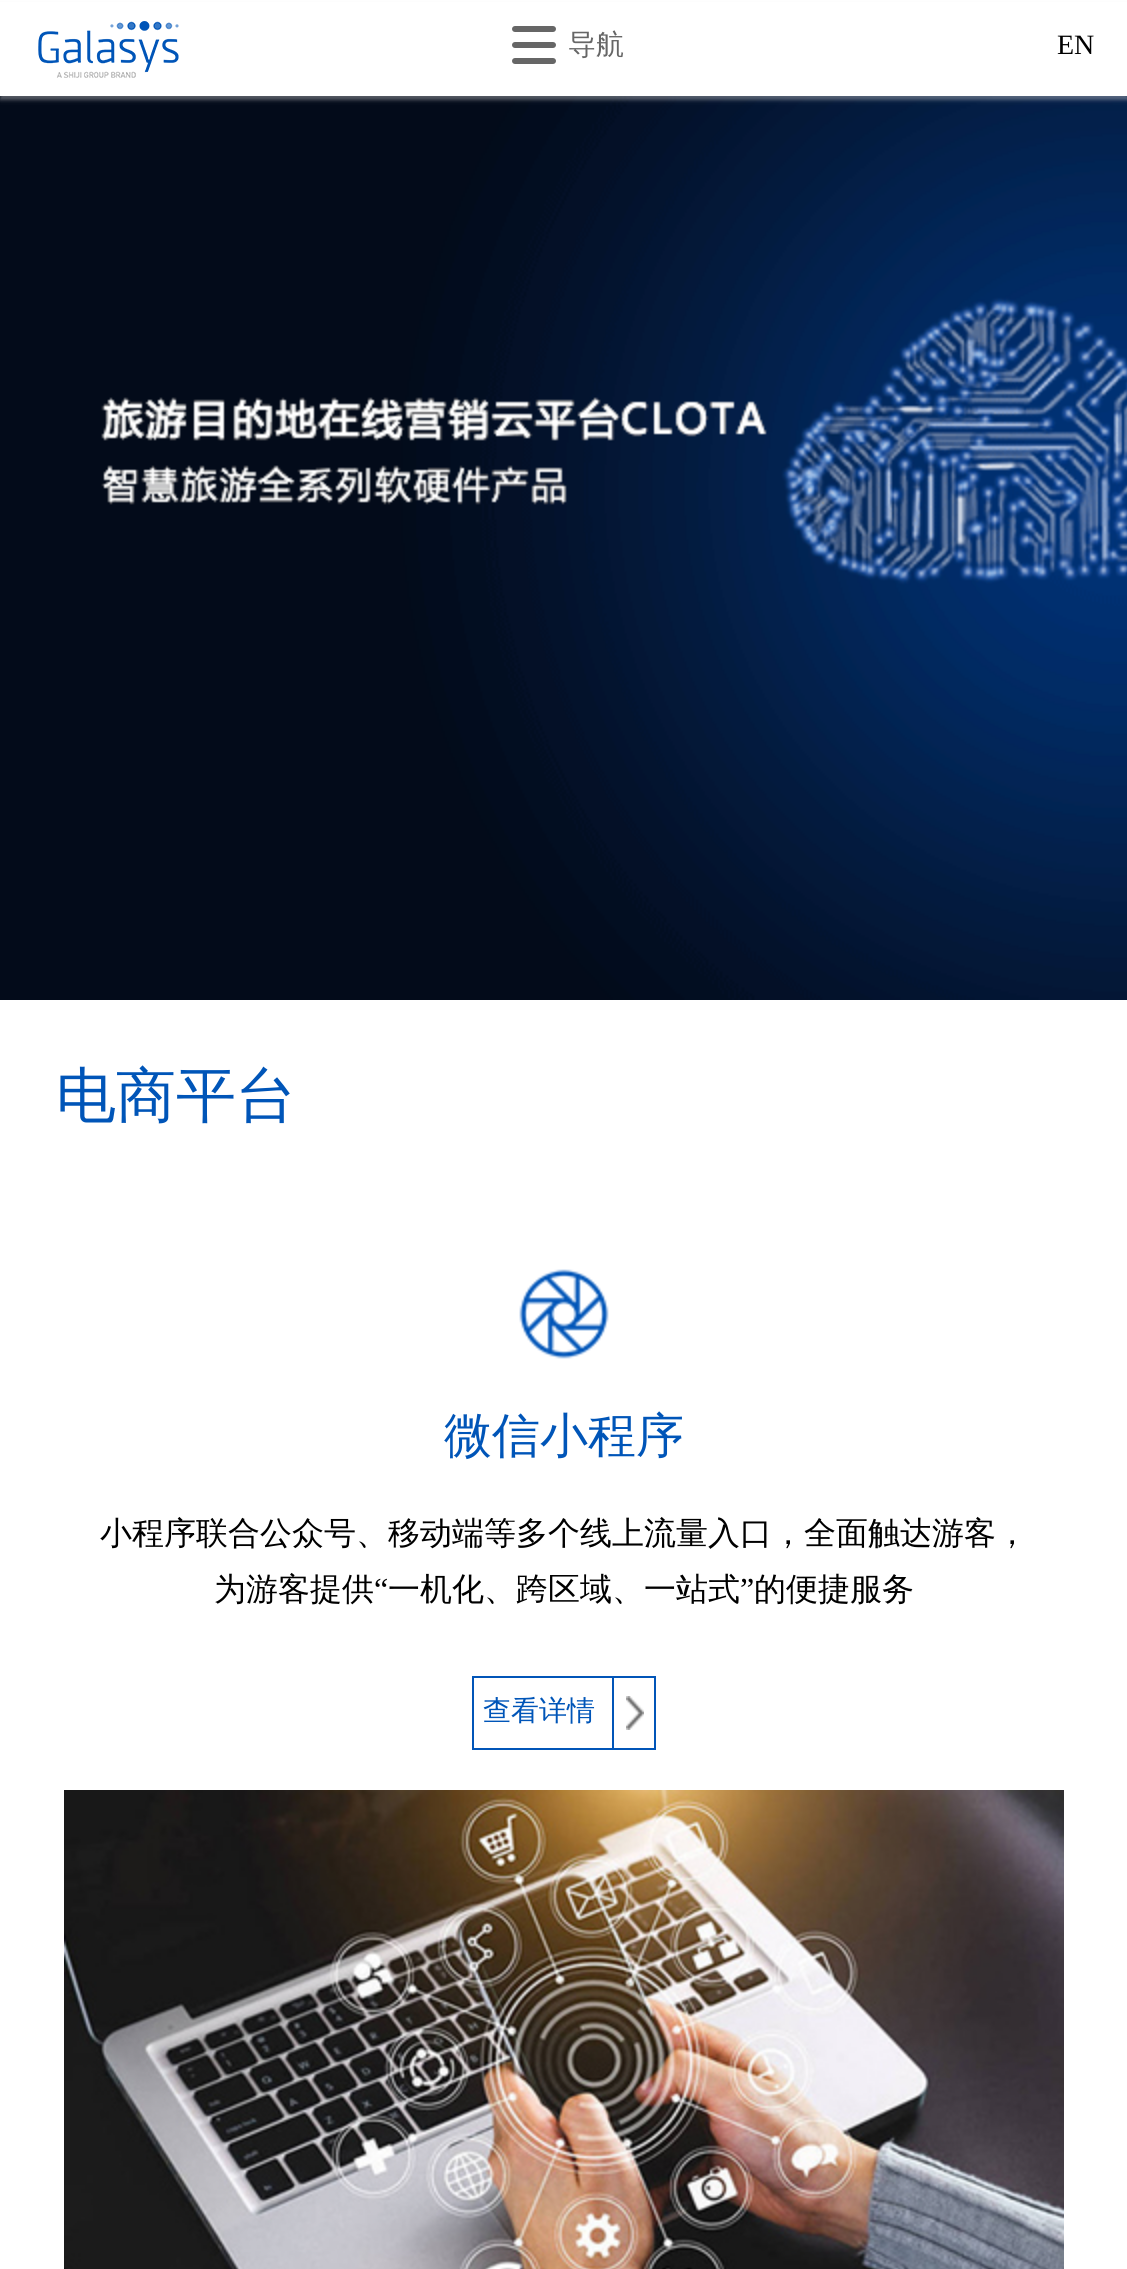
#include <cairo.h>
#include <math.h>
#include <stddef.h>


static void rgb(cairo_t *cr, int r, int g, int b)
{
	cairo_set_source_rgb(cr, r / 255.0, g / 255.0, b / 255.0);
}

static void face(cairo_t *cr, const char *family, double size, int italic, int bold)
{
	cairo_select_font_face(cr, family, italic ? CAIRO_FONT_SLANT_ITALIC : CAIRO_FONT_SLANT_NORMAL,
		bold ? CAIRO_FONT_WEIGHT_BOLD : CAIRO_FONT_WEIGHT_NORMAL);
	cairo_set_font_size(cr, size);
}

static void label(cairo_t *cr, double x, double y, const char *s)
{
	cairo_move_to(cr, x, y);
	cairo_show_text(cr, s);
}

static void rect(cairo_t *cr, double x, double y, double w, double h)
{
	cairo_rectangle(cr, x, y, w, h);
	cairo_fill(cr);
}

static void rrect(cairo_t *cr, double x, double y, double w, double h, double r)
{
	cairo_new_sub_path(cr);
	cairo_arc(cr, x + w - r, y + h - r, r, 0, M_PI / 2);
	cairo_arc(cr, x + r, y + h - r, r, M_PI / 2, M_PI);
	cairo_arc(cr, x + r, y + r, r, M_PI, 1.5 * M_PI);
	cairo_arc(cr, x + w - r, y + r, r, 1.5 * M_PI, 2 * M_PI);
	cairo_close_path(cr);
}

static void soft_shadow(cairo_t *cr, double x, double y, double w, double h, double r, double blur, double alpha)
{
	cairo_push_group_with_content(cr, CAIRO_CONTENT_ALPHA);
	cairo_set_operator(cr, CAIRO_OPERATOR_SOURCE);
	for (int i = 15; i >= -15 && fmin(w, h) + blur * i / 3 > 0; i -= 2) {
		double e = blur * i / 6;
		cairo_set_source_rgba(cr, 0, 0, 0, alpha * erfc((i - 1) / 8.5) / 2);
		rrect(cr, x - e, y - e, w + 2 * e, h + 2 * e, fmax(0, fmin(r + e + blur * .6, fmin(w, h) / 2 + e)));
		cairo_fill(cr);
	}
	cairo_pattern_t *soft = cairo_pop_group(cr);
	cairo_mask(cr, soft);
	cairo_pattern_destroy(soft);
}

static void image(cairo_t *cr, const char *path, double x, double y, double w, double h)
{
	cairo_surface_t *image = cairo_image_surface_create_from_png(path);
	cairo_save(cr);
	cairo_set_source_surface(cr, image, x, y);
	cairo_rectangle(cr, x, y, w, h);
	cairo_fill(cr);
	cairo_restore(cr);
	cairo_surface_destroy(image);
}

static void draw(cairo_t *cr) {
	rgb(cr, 255, 255, 255);
	cairo_paint(cr);
	image(cr, "image1.png", 0, 96, 1127, 904);
	rgb(cr, 209, 209, 209);
	soft_shadow(cr, 0, 4, 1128, 96, 0, 2, 0.4);
	rgb(cr, 255, 255, 255);
	rect(cr, 0, 2, 1127, 94);
	image(cr, "image0.png", 38, 21, 141, 57);
	rgb(cr, 102, 102, 102);
	rrect(cr, 512, 26, 44, 6, 3);
	cairo_fill(cr);
	rrect(cr, 512, 42, 44, 6, 3);
	cairo_fill(cr);
	rrect(cr, 512, 58, 44, 6, 3);
	cairo_fill(cr);
	face(cr, "WenQuanYi Zen Hei Medium", 28, 0, 0);
	label(cr, 568, 54, "导航");
	face(cr, "Liberation Serif", 28, 0, 0);
	rgb(cr, 0, 0, 0);
	label(cr, 1057, 54, "EN");
	face(cr, "WenQuanYi Zen Hei Medium", 60, 0, 0);
	rgb(cr, 0, 85, 184);
	label(cr, 56, 1116, "电商平台");
	image(cr, "image2.png", 519, 1269, 90, 90);
	face(cr, "WenQuanYi Zen Hei Medium", 48, 0, 0);
	label(cr, 444, 1452, "微信小程序");
	face(cr, "WenQuanYi Zen Hei Medium", 32, 0, 0);
	rgb(cr, 0, 0, 0);
	label(cr, 100, 1544, "小程序联合公众号、移动端等多个线上流量入口，全面触达游客，");
	label(cr, 214, 1600, "为游客提供");
	face(cr, "Liberation Serif", 32, 0, 0);
	label(cr, 374, 1600, "“");
	face(cr, "WenQuanYi Zen Hei Medium", 32, 0, 0);
	label(cr, 388, 1600, "一机化、跨区域、一站式");
	face(cr, "Liberation Serif", 32, 0, 0);
	label(cr, 740, 1600, "”");
	face(cr, "WenQuanYi Zen Hei Medium", 32, 0, 0);
	label(cr, 754, 1600, "的便捷服务");
	cairo_rectangle(cr, 473, 1677, 182, 72);
	rgb(cr, 1, 85, 184);
	cairo_stroke(cr);
	face(cr, "WenQuanYi Zen Hei Medium", 28, 0, 0);
	rgb(cr, 0, 85, 184);
	label(cr, 483, 1720, "查看详情");
	image(cr, "image3.png", 626, 1696, 18, 34);
	rgb(cr, 1, 85, 184);
	rect(cr, 612, 1678, 2, 70);
	image(cr, "image4.png", 64, 1790, 1000, 479);
}

int main(void) {
	cairo_surface_t *surface = cairo_image_surface_create(CAIRO_FORMAT_RGB24, 1127, 2269);
	cairo_t *cr = cairo_create(surface);
	cairo_font_options_t *options = cairo_font_options_create();
	cairo_font_options_set_hint_metrics(options, CAIRO_HINT_METRICS_OFF);
	cairo_font_options_set_hint_style(options, CAIRO_HINT_STYLE_NONE);
	cairo_set_font_options(cr, options);
	cairo_set_miter_limit(cr, 4);
	draw(cr);
	cairo_surface_write_to_png(surface, "render.png");
	cairo_font_options_destroy(options);
	cairo_destroy(cr);
	cairo_surface_destroy(surface);
	return 0;
}
